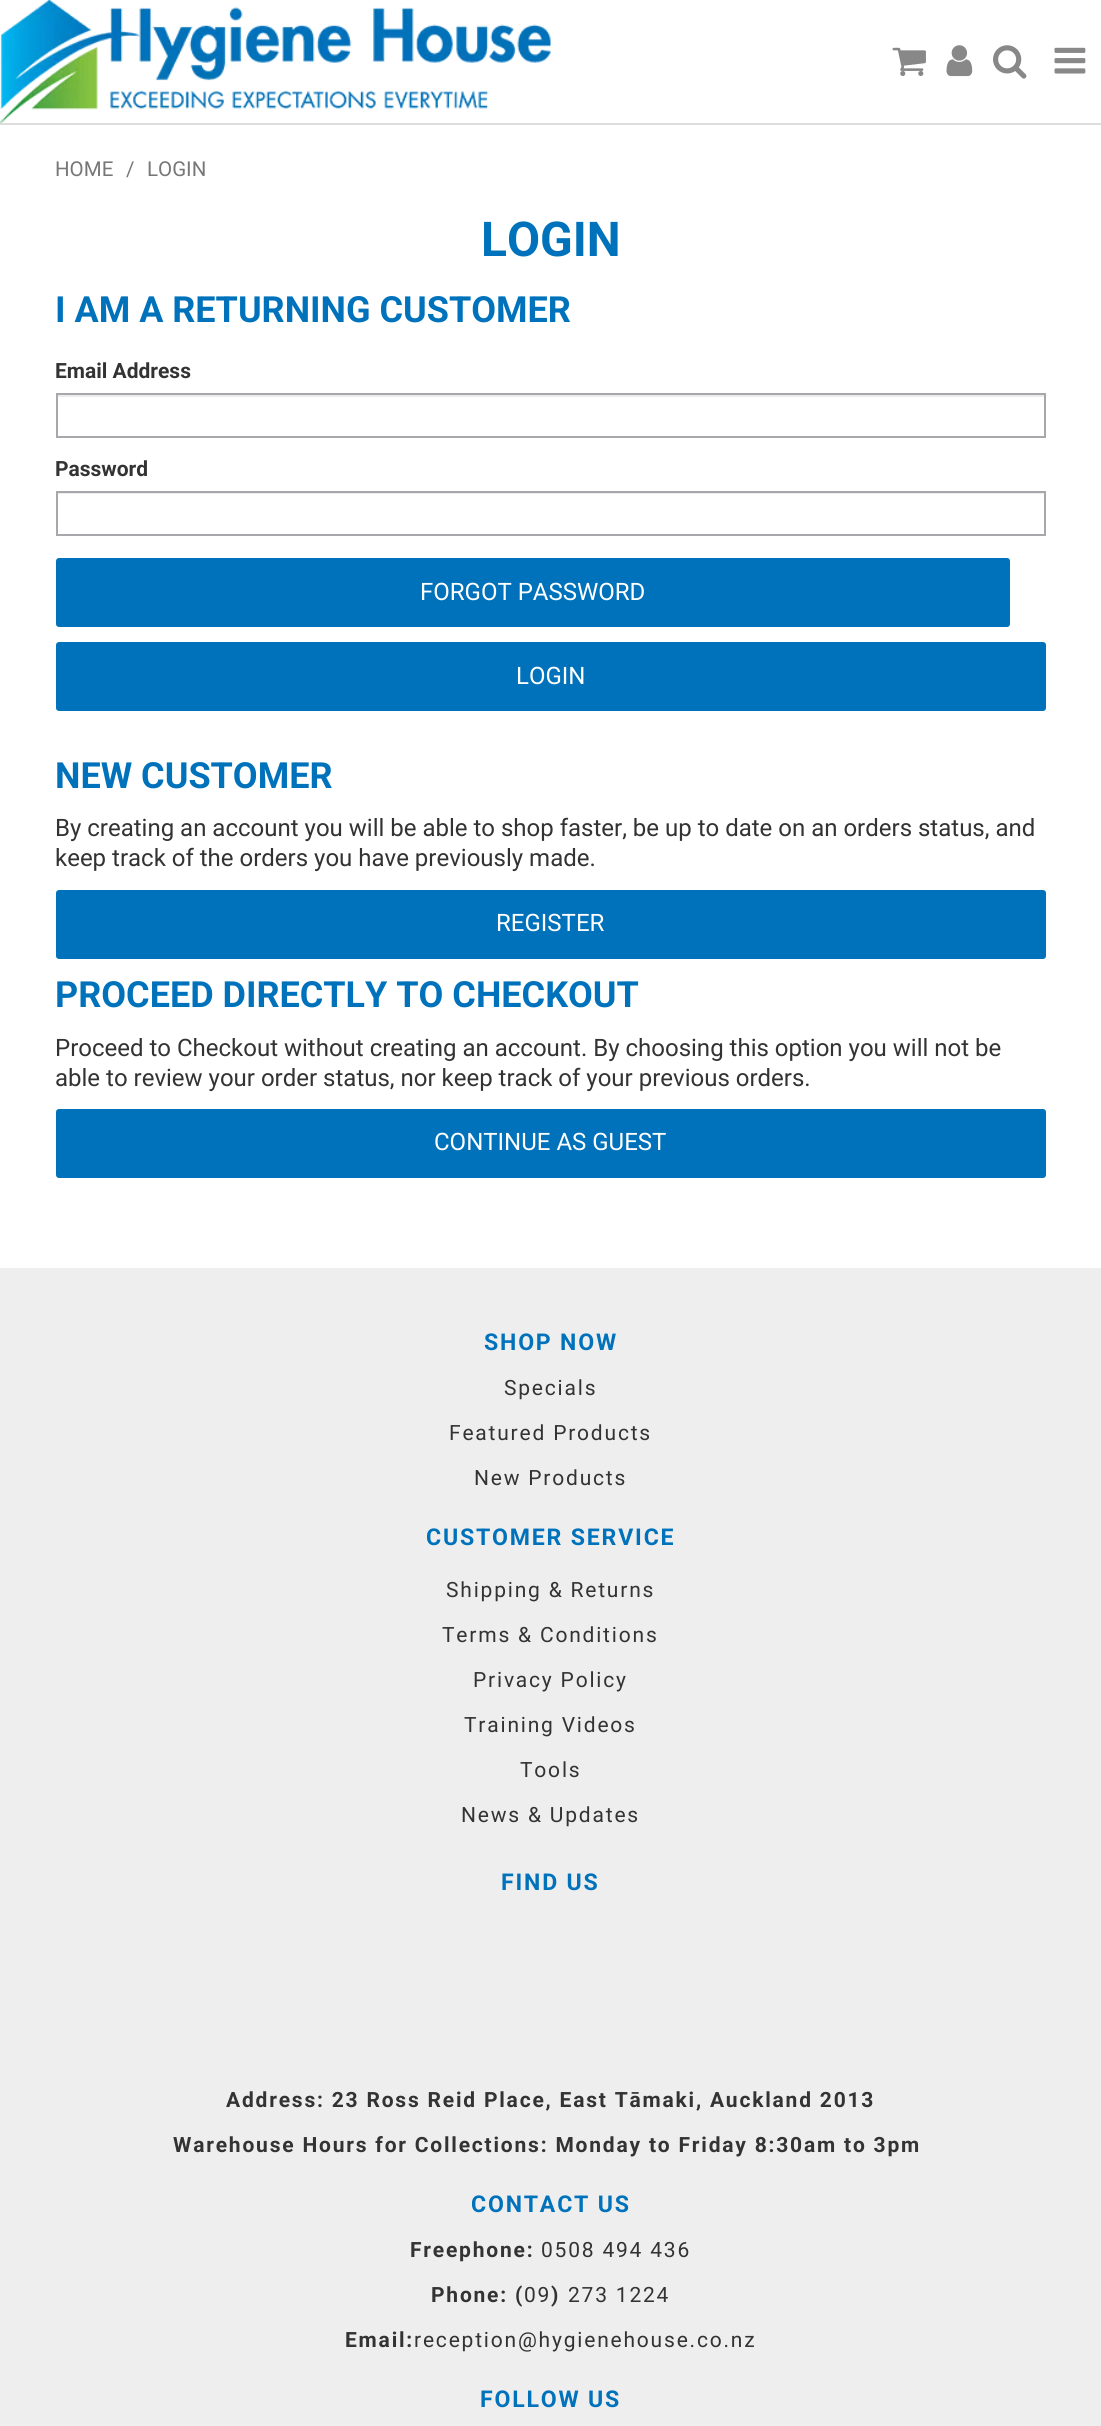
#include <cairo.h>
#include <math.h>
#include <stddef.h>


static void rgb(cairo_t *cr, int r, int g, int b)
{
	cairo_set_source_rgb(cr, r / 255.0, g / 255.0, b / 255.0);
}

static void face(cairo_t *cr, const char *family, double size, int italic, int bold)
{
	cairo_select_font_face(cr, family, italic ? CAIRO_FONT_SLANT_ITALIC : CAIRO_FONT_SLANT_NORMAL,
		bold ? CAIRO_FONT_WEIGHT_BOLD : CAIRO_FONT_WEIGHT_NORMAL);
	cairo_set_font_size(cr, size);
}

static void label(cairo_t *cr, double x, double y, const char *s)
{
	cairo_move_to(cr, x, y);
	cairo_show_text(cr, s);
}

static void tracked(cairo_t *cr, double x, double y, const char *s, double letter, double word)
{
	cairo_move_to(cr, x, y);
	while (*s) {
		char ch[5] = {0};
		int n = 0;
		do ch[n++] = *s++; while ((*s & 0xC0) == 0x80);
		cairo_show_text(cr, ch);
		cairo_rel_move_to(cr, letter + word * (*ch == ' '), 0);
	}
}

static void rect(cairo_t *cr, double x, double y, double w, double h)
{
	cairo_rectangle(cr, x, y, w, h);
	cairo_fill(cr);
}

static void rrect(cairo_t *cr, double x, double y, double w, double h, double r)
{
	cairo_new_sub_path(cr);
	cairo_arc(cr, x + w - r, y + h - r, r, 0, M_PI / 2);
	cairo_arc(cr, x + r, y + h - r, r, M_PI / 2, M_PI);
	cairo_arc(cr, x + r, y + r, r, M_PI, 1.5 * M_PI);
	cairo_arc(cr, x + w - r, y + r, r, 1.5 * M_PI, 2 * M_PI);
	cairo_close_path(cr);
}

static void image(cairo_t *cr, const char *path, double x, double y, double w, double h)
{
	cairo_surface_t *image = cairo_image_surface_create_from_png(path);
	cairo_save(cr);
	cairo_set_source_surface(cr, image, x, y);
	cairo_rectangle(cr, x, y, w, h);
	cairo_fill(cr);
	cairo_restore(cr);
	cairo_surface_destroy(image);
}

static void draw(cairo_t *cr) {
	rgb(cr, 255, 255, 255);
	cairo_paint(cr);
	image(cr, "image0.png", 0, 0, 551, 123);
	image(cr, "image1.png", 892, 47, 34, 29);
	image(cr, "image2.png", 946, 45, 27, 32);
	image(cr, "image3.png", 993, 45, 34, 34);
	image(cr, "image4.png", 1054, 47, 32, 27);
	rgb(cr, 221, 221, 221);
	rect(cr, 0, 123, 1101, 2);
	face(cr, "Roboto", 20.5, 0, 0);
	rgb(cr, 119, 119, 119);
	label(cr, 55, 176, "HOME");
	label(cr, 126, 176, "/");
	label(cr, 147, 176, "LOGIN");
	face(cr, "Roboto", 48, 0, 1);
	rgb(cr, 0, 114, 187);
	label(cr, 481, 256, "LOGIN");
	face(cr, "Roboto", 36, 0, 1);
	label(cr, 55, 322, "I AM A RETURNING CUSTOMER");
	face(cr, "Roboto", 21, 0, 1);
	rgb(cr, 51, 51, 51);
	label(cr, 55, 378, "Email Address");
	rgb(cr, 236, 236, 236);
	rect(cr, 57, 395, 987, 2);
	cairo_rectangle(cr, 57, 394, 988, 43);
	rgb(cr, 166, 168, 171);
	cairo_stroke(cr);
	rgb(cr, 51, 51, 51);
	label(cr, 55, 476, "Password");
	rgb(cr, 236, 236, 236);
	rect(cr, 57, 493, 987, 1);
	cairo_rectangle(cr, 57, 492, 988, 43);
	rgb(cr, 166, 168, 171);
	cairo_stroke(cr);
	rgb(cr, 0, 114, 187);
	rrect(cr, 56, 558, 954, 69, 3);
	cairo_fill(cr);
	face(cr, "Roboto", 24, 0, 0);
	rgb(cr, 255, 255, 255);
	label(cr, 420, 600, "FORGOT PASSWORD");
	rgb(cr, 0, 114, 187);
	rrect(cr, 56, 642, 990, 69, 3);
	cairo_fill(cr);
	rgb(cr, 255, 255, 255);
	label(cr, 516, 684, "LOGIN");
	face(cr, "Roboto", 36, 0, 1);
	rgb(cr, 0, 114, 187);
	label(cr, 55, 788, "NEW CUSTOMER");
	face(cr, "Roboto", 24, 0, 0);
	rgb(cr, 51, 51, 51);
	label(cr, 55, 836, "By creating an account you will be able to shop faster, be up to date on an orders status, and");
	label(cr, 55, 866, "keep track of the orders you have previously made.");
	rgb(cr, 0, 114, 187);
	rrect(cr, 56, 890, 990, 69, 3);
	cairo_fill(cr);
	rgb(cr, 255, 255, 255);
	label(cr, 496, 931, "REGISTER");
	face(cr, "Roboto", 36, 0, 1);
	rgb(cr, 0, 114, 187);
	label(cr, 55, 1007, "PROCEED DIRECTLY TO CHECKOUT");
	face(cr, "Roboto", 24, 0, 0);
	rgb(cr, 51, 51, 51);
	label(cr, 55, 1056, "Proceed to Checkout without creating an account. By choosing this option you will not be");
	label(cr, 55, 1086, "able to review your order status, nor keep track of your previous orders.");
	rgb(cr, 0, 114, 187);
	rrect(cr, 56, 1109, 990, 69, 3);
	cairo_fill(cr);
	rgb(cr, 255, 255, 255);
	label(cr, 434, 1150, "CONTINUE AS GUEST");
	rgb(cr, 238, 238, 238);
	rect(cr, 0, 1268, 1101, 1158);
	face(cr, "Roboto", 23.1, 0, 1);
	rgb(cr, 0, 114, 187);
	tracked(cr, 484, 1350, "SHOP NOW", 1.8, 0);
	face(cr, "Roboto", 21, 0, 0);
	rgb(cr, 51, 51, 51);
	tracked(cr, 504, 1395, "Specials", 1.8, 0);
	tracked(cr, 449, 1440, "Featured Products", 1.8, 0);
	tracked(cr, 474, 1485, "New Products", 1.8, 0);
	face(cr, "Roboto", 23.1, 0, 1);
	rgb(cr, 0, 114, 187);
	tracked(cr, 426, 1545, "CUSTOMER SERVICE", 1.8, 0);
	face(cr, "Roboto", 21, 0, 0);
	rgb(cr, 51, 51, 51);
	tracked(cr, 446, 1597, "Shipping & Returns", 1.8, 0);
	tracked(cr, 442, 1642, "Terms & Conditions", 1.8, 0);
	tracked(cr, 473, 1687, "Privacy Policy", 1.8, 0);
	tracked(cr, 464, 1732, "Training Videos", 1.8, 0);
	tracked(cr, 520, 1777, "Tools", 1.8, 0);
	tracked(cr, 461, 1822, "News & Updates", 1.8, 0);
	face(cr, "Roboto", 23.1, 0, 1);
	rgb(cr, 0, 114, 187);
	tracked(cr, 501, 1890, "FIND US", 1.8, 0);
	face(cr, "Roboto", 21, 0, 1);
	rgb(cr, 51, 51, 51);
	tracked(cr, 226, 2107, "Address: 23 Ross Reid Place, East Tāmaki, Auckland 2013", 1.8, 0);
	tracked(cr, 173, 2152, "Warehouse Hours for Collections: Monday to Friday 8:30am to 3pm", 1.8, 0);
	face(cr, "Roboto", 23.1, 0, 1);
	rgb(cr, 0, 114, 187);
	tracked(cr, 471, 2212, "CONTACT US", 1.8, 0);
	face(cr, "Roboto", 21, 0, 1);
	rgb(cr, 51, 51, 51);
	tracked(cr, 410, 2257, "Freephone:", 1.8, 0);
	face(cr, "Roboto", 21, 0, 0);
	tracked(cr, 541, 2257, "0508 494 436", 1.8, 0);
	face(cr, "Roboto", 21, 0, 1);
	tracked(cr, 431, 2302, "Phone: (", 1.8, 0);
	face(cr, "Roboto", 21, 0, 0);
	tracked(cr, 524, 2302, "09", 1.8, 0);
	face(cr, "Roboto", 21, 0, 1);
	tracked(cr, 551, 2302, ")", 1.8, 0);
	face(cr, "Roboto", 21, 0, 0);
	tracked(cr, 568, 2302, "273 1224", 1.8, 0);
	face(cr, "Roboto", 21, 0, 1);
	tracked(cr, 345, 2347, "Email:", 1.8, 0);
	face(cr, "Roboto", 21, 0, 0);
	tracked(cr, 414, 2347, "reception@hygienehouse.co.nz", 1.8, 0);
	face(cr, "Roboto", 23.1, 0, 1);
	rgb(cr, 0, 114, 187);
	tracked(cr, 480, 2407, "FOLLOW US", 1.8, 0);
}

int main(void) {
	cairo_surface_t *surface = cairo_image_surface_create(CAIRO_FORMAT_RGB24, 1101, 2426);
	cairo_t *cr = cairo_create(surface);
	cairo_font_options_t *options = cairo_font_options_create();
	cairo_font_options_set_hint_metrics(options, CAIRO_HINT_METRICS_OFF);
	cairo_font_options_set_hint_style(options, CAIRO_HINT_STYLE_NONE);
	cairo_set_font_options(cr, options);
	cairo_set_miter_limit(cr, 4);
	draw(cr);
	cairo_surface_write_to_png(surface, "render.png");
	cairo_font_options_destroy(options);
	cairo_destroy(cr);
	cairo_surface_destroy(surface);
	return 0;
}
